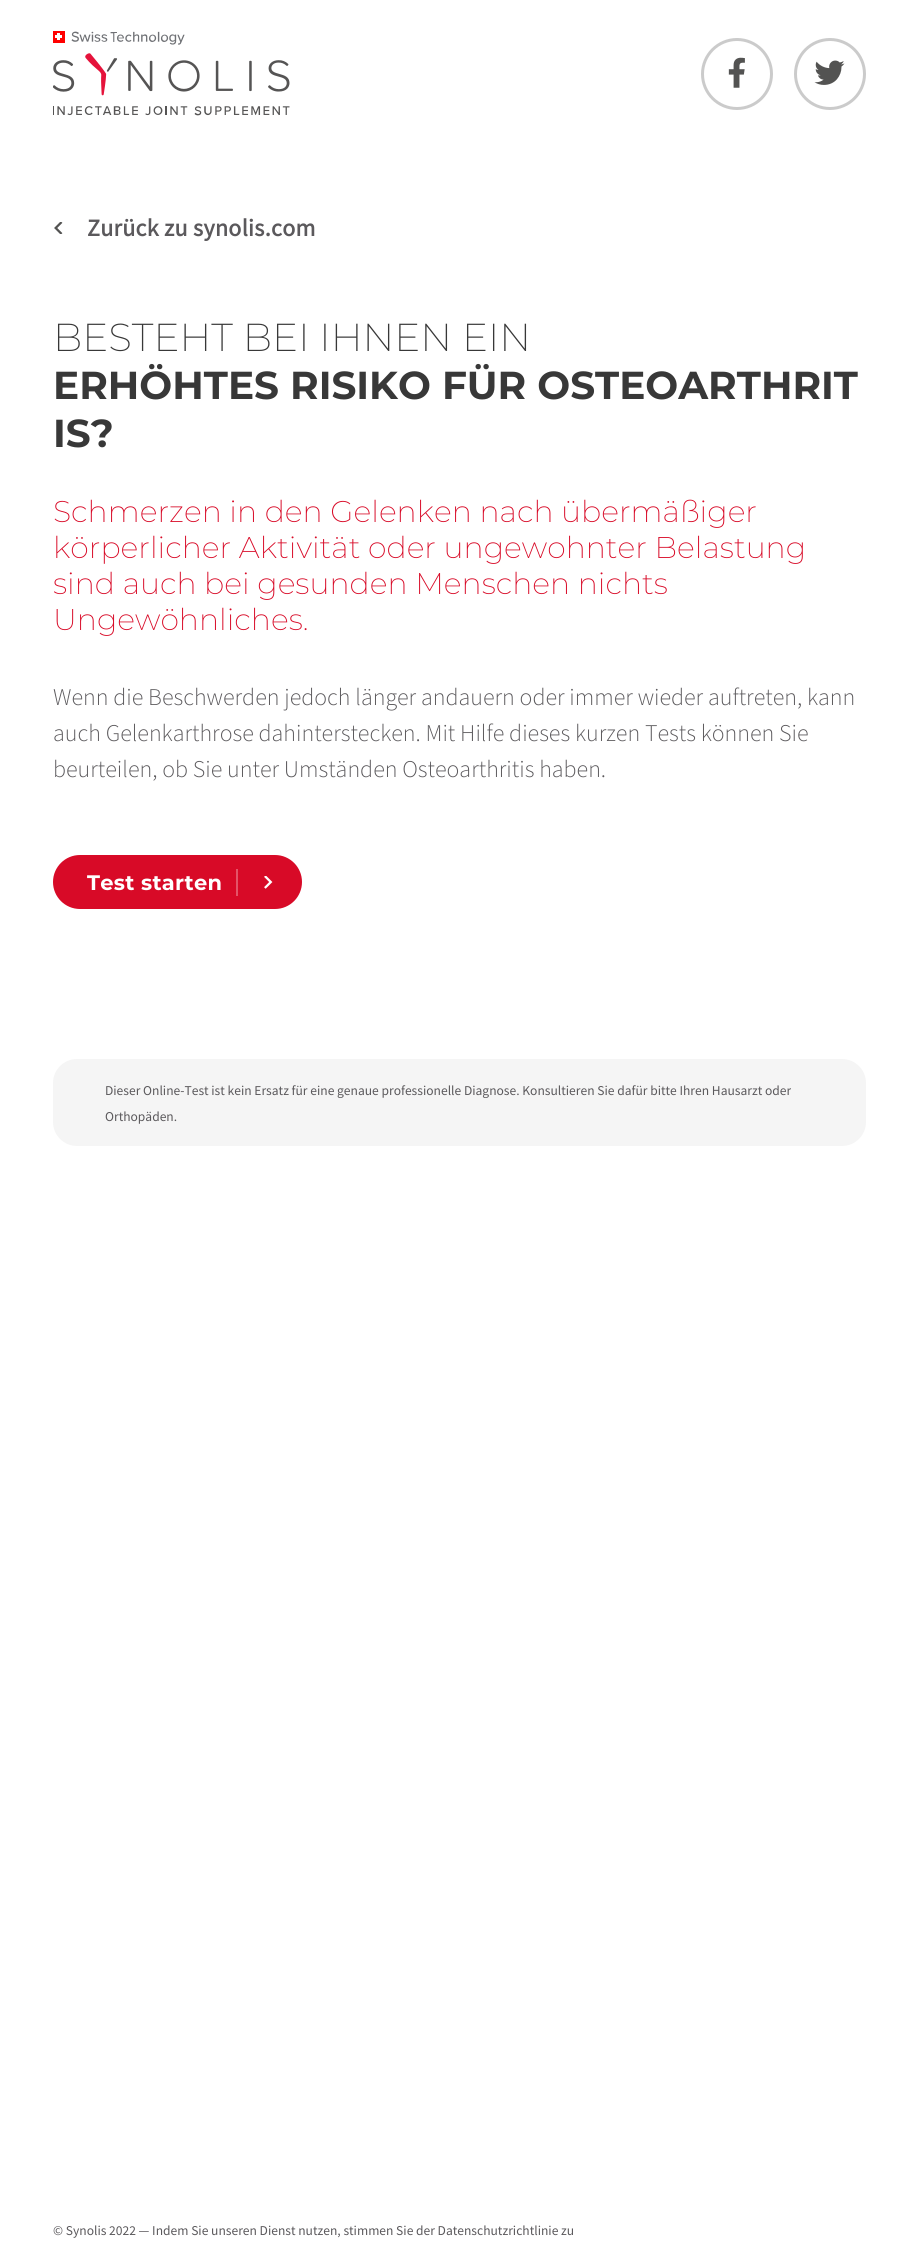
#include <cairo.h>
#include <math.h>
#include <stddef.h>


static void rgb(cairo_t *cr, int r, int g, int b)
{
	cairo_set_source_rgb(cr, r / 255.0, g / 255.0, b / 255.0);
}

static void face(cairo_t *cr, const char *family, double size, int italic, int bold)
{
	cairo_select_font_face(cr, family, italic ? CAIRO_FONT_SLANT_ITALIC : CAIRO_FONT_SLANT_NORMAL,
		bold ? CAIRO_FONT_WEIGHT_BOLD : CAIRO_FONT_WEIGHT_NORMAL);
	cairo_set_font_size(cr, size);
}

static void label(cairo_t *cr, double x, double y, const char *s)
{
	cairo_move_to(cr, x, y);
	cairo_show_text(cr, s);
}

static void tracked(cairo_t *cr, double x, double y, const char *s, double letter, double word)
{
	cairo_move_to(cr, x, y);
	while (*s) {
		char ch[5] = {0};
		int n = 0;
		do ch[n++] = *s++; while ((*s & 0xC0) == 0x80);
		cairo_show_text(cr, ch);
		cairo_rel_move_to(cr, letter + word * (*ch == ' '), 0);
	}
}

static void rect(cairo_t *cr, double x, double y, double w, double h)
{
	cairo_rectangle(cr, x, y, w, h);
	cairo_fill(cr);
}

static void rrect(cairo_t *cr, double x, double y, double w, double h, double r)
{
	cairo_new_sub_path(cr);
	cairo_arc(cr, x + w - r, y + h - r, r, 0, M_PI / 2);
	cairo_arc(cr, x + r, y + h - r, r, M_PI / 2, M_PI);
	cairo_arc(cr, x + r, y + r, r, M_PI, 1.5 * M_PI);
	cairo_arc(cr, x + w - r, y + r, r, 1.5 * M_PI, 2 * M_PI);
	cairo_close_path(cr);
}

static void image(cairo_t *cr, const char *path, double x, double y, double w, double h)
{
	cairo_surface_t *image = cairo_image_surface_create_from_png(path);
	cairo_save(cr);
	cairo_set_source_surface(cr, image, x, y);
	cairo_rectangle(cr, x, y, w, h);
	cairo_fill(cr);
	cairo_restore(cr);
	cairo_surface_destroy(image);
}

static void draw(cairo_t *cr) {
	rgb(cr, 255, 255, 255);
	cairo_paint(cr);
	image(cr, "image0.png", 53, 31, 237, 85);
	cairo_arc(cr, 737, 74, 34.5, 0, 2 * M_PI);
	rgb(cr, 203, 203, 203);
	cairo_set_line_width(cr, 3);
	cairo_stroke(cr);
	image(cr, "image1.png", 728, 57, 17, 31);
	cairo_arc(cr, 830, 74, 34.5, 0, 2 * M_PI);
	cairo_stroke(cr);
	image(cr, "image2.png", 814, 60, 31, 25);
	image(cr, "image3.png", 54, 222, 9, 12);
	face(cr, "Source Sans Pro", 24, 0, 1);
	rgb(cr, 91, 89, 92);
	tracked(cr, 87, 236, "Zurück zu synolis.com", 0.3, 0);
	face(cr, "Montserrat ExtraLight", 39, 0, 0);
	rgb(cr, 56, 56, 56);
	label(cr, 53, 351, "BESTEHT BEI IHNEN EIN");
	face(cr, "Montserrat", 39, 0, 1);
	label(cr, 53, 399, "ERHÖHTES RISIKO FÜR OSTEOARTHRIT");
	label(cr, 53, 447, "IS?");
	face(cr, "Montserrat ExtraLight", 30, 0, 0);
	rgb(cr, 216, 10, 39);
	label(cr, 53, 522, "Schmerzen in den Gelenken nach übermäßiger");
	label(cr, 53, 558, "körperlicher Aktivität oder ungewohnter Belastung");
	label(cr, 53, 594, "sind auch bei gesunden Menschen nichts");
	label(cr, 53, 630, "Ungewöhnliches.");
	face(cr, "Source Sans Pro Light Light", 24, 0, 0);
	rgb(cr, 91, 89, 92);
	label(cr, 53, 705, "Wenn die Beschwerden jedoch länger andauern oder immer wieder auftreten, kann");
	label(cr, 53, 741, "auch Gelenkarthrose dahinterstecken. Mit Hilfe dieses kurzen Tests können Sie");
	label(cr, 53, 777, "beurteilen, ob Sie unter Umständen Osteoarthritis haben.");
	rgb(cr, 216, 10, 39);
	rrect(cr, 53, 855, 249, 54, 27);
	cairo_fill(cr);
	face(cr, "Montserrat", 21, 0, 1);
	rgb(cr, 255, 255, 255);
	tracked(cr, 87, 890, "Test starten", 0.3, 0);
	rgb(cr, 228, 84, 104);
	rect(cr, 236, 869, 2, 27);
	image(cr, "image4.png", 264, 876, 9, 13);
	rgb(cr, 245, 245, 245);
	rrect(cr, 53, 1059, 813, 87, 24);
	cairo_fill(cr);
	face(cr, "Source Sans Pro", 13.5, 0, 0);
	rgb(cr, 91, 89, 92);
	label(cr, 105, 1095, "Dieser Online-Test ist kein Ersatz für eine genaue professionelle Diagnose. Konsultieren Sie dafür bitte Ihren Hausarzt oder");
	label(cr, 105, 1121, "Orthopäden.");
	label(cr, 53, 2235, "© Synolis 2022 — Indem Sie unseren Dienst nutzen, stimmen Sie der Datenschutzrichtlinie zu");
}

int main(void) {
	cairo_surface_t *surface = cairo_image_surface_create(CAIRO_FORMAT_RGB24, 917, 2254);
	cairo_t *cr = cairo_create(surface);
	cairo_font_options_t *options = cairo_font_options_create();
	cairo_font_options_set_hint_metrics(options, CAIRO_HINT_METRICS_OFF);
	cairo_font_options_set_hint_style(options, CAIRO_HINT_STYLE_NONE);
	cairo_set_font_options(cr, options);
	cairo_set_miter_limit(cr, 4);
	draw(cr);
	cairo_surface_write_to_png(surface, "render.png");
	cairo_font_options_destroy(options);
	cairo_destroy(cr);
	cairo_surface_destroy(surface);
	return 0;
}
